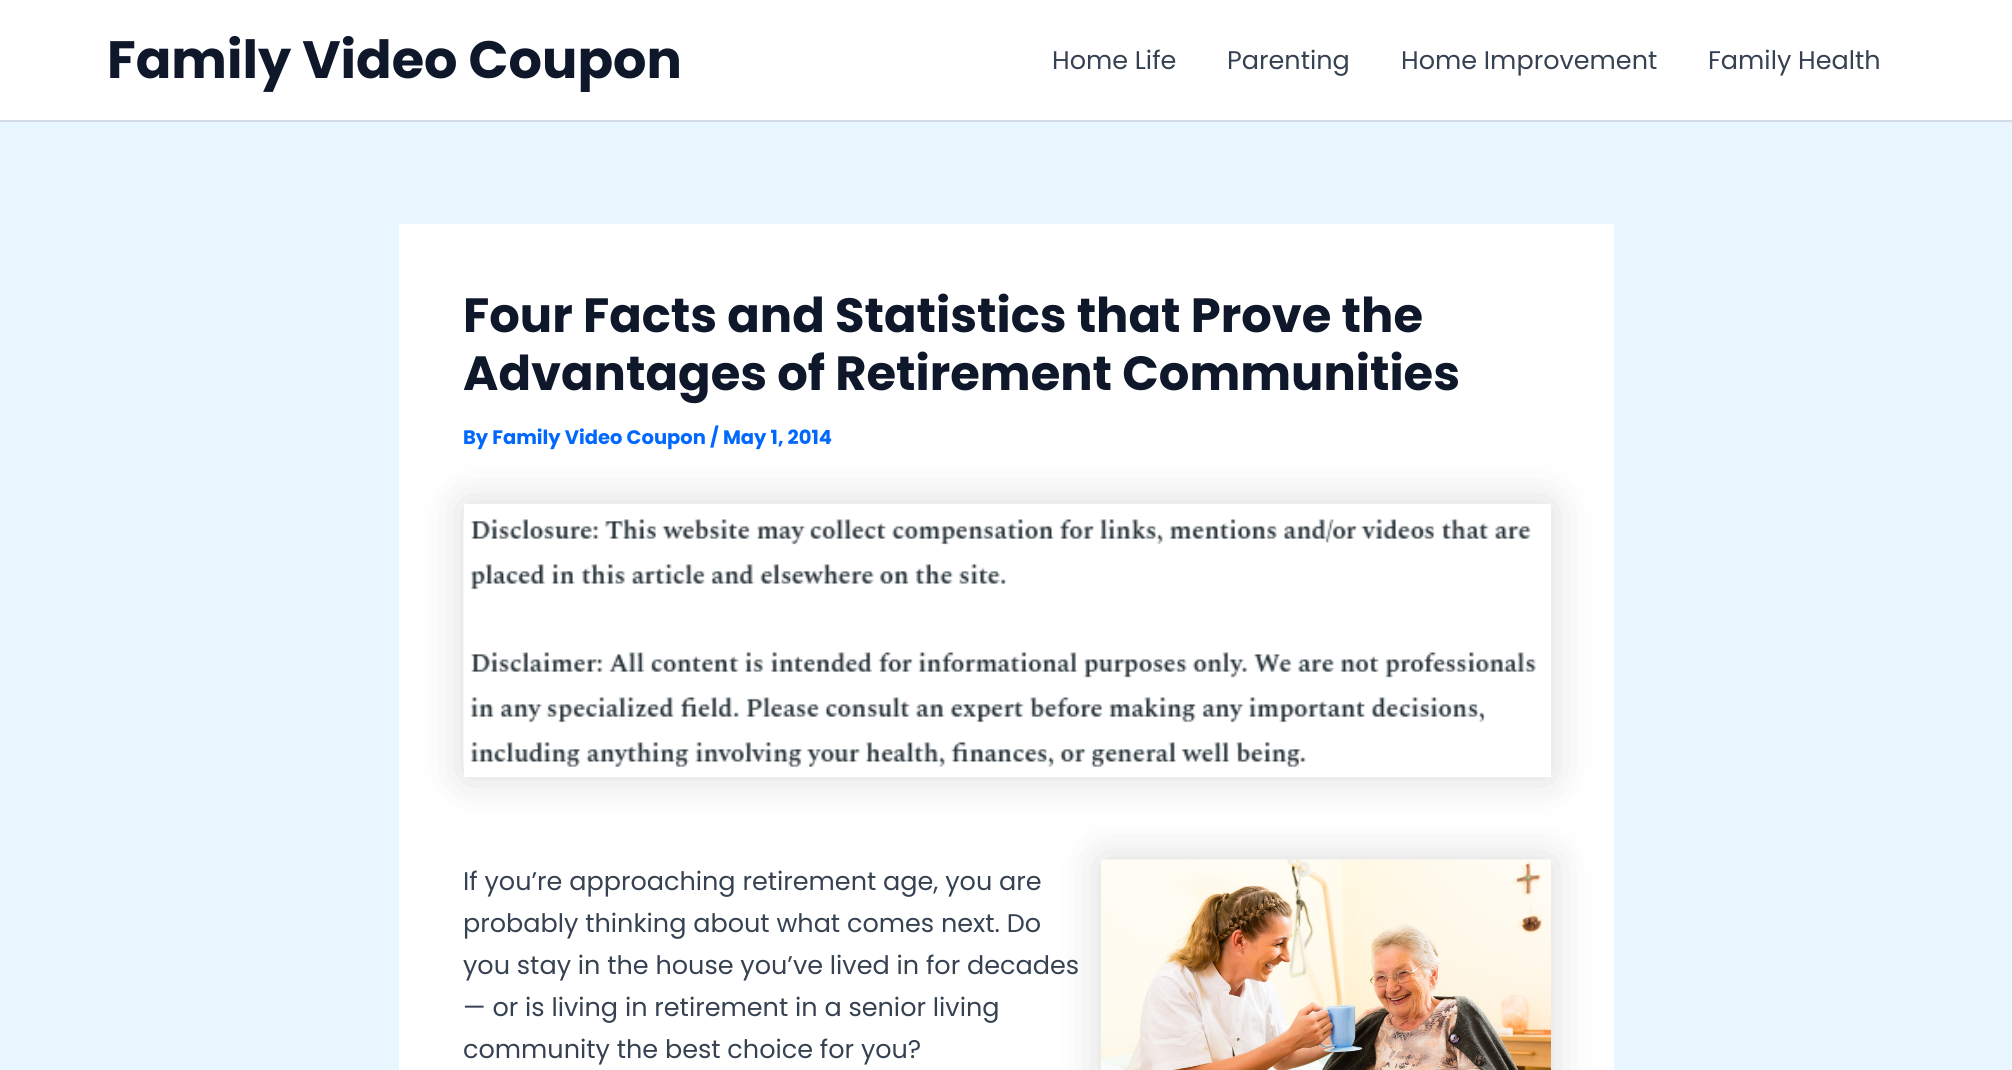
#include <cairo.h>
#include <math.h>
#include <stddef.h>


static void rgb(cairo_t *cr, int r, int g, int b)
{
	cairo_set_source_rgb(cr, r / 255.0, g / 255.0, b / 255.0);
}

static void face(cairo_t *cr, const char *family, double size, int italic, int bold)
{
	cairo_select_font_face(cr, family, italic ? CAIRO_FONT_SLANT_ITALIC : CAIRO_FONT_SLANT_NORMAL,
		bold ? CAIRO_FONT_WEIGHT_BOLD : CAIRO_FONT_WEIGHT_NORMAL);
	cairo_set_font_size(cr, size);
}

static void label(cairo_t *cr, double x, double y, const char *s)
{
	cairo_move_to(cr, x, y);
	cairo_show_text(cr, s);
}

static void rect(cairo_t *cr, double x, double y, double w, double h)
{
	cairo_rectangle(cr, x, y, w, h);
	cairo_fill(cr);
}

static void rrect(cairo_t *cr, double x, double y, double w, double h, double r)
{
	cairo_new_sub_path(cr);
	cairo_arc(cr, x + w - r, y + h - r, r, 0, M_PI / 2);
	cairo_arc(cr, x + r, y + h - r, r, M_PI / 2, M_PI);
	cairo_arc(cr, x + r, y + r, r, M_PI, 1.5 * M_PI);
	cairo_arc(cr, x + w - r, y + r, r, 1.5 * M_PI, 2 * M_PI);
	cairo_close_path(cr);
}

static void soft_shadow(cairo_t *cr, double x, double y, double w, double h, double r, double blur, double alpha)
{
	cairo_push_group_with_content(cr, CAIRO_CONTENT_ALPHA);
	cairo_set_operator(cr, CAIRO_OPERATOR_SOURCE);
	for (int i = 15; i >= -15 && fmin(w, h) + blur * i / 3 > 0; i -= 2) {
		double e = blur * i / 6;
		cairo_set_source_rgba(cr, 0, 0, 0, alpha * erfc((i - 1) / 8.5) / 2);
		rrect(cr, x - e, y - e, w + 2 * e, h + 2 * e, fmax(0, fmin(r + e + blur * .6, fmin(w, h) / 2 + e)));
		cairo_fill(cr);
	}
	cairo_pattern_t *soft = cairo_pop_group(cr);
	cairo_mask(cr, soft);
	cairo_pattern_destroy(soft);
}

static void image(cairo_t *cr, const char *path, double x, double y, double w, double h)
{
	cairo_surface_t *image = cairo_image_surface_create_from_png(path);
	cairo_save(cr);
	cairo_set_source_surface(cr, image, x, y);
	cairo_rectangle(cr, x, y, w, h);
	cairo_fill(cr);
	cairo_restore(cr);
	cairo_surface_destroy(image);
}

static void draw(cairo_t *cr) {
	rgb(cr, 231, 246, 255);
	cairo_paint(cr);
	rgb(cr, 255, 255, 255);
	rect(cr, 0, 0, 2012, 120);
	rgb(cr, 209, 218, 229);
	rect(cr, 0, 120, 2012, 2);
	face(cr, "Poppins", 52.5, 0, 1);
	rgb(cr, 15, 23, 42);
	label(cr, 107, 78, "Family Video Coupon");
	face(cr, "Poppins", 25.5, 0, 0);
	rgb(cr, 54, 65, 81);
	label(cr, 1052, 69, "Home Life");
	label(cr, 1227, 69, "Parenting");
	label(cr, 1401, 69, "Home Improvement");
	label(cr, 1708, 69, "Family Health");
	rgb(cr, 255, 255, 255);
	rect(cr, 399, 224, 1215, 846);
	face(cr, "Poppins", 48, 0, 1);
	rgb(cr, 15, 23, 42);
	label(cr, 463, 332, "Four Facts and Statistics that Prove the");
	label(cr, 463, 390, "Advantages of Retirement Communities");
	face(cr, "Poppins", 19.5, 0, 1);
	rgb(cr, 0, 103, 255);
	label(cr, 463, 444, "By Family Video Coupon / May 1, 2014");
	cairo_save(cr);
	cairo_set_fill_rule(cr, CAIRO_FILL_RULE_EVEN_ODD);
	cairo_new_path(cr);
	cairo_move_to(cr, 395, 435);
	cairo_line_to(cr, 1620, 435);
	cairo_line_to(cr, 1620, 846);
	cairo_line_to(cr, 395, 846);
	cairo_close_path(cr);
	cairo_move_to(cr, 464, 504);
	cairo_line_to(cr, 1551, 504);
	cairo_line_to(cr, 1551, 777);
	cairo_line_to(cr, 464, 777);
	cairo_close_path(cr);
	cairo_clip(cr);
	rgb(cr, 0, 0, 0);
	soft_shadow(cr, 464, 504, 1087, 273, 0, 22.5, 0.15);
	cairo_restore(cr);
	image(cr, "image0.png", 463, 519, 1073, 248);
	rgb(cr, 0, 0, 0);
	soft_shadow(cr, 1101, 860, 450, 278, 0, 22.5, 0.15);
	face(cr, "Poppins", 25.5, 0, 0);
	rgb(cr, 54, 65, 81);
	label(cr, 463, 890, "If you’re approaching retirement age, you are");
	label(cr, 463, 932, "probably thinking about what comes next. Do");
	label(cr, 463, 974, "you stay in the house you’ve lived in for decades");
	label(cr, 463, 1016, "— or is living in retirement in a senior living");
	label(cr, 463, 1058, "community the best choice for you?");
	image(cr, "image1.png", 1101, 859, 450, 211);
}

int main(void) {
	cairo_surface_t *surface = cairo_image_surface_create(CAIRO_FORMAT_RGB24, 2012, 1070);
	cairo_t *cr = cairo_create(surface);
	cairo_font_options_t *options = cairo_font_options_create();
	cairo_font_options_set_hint_metrics(options, CAIRO_HINT_METRICS_OFF);
	cairo_font_options_set_hint_style(options, CAIRO_HINT_STYLE_NONE);
	cairo_set_font_options(cr, options);
	cairo_set_miter_limit(cr, 4);
	draw(cr);
	cairo_surface_write_to_png(surface, "render.png");
	cairo_font_options_destroy(options);
	cairo_destroy(cr);
	cairo_surface_destroy(surface);
	return 0;
}
